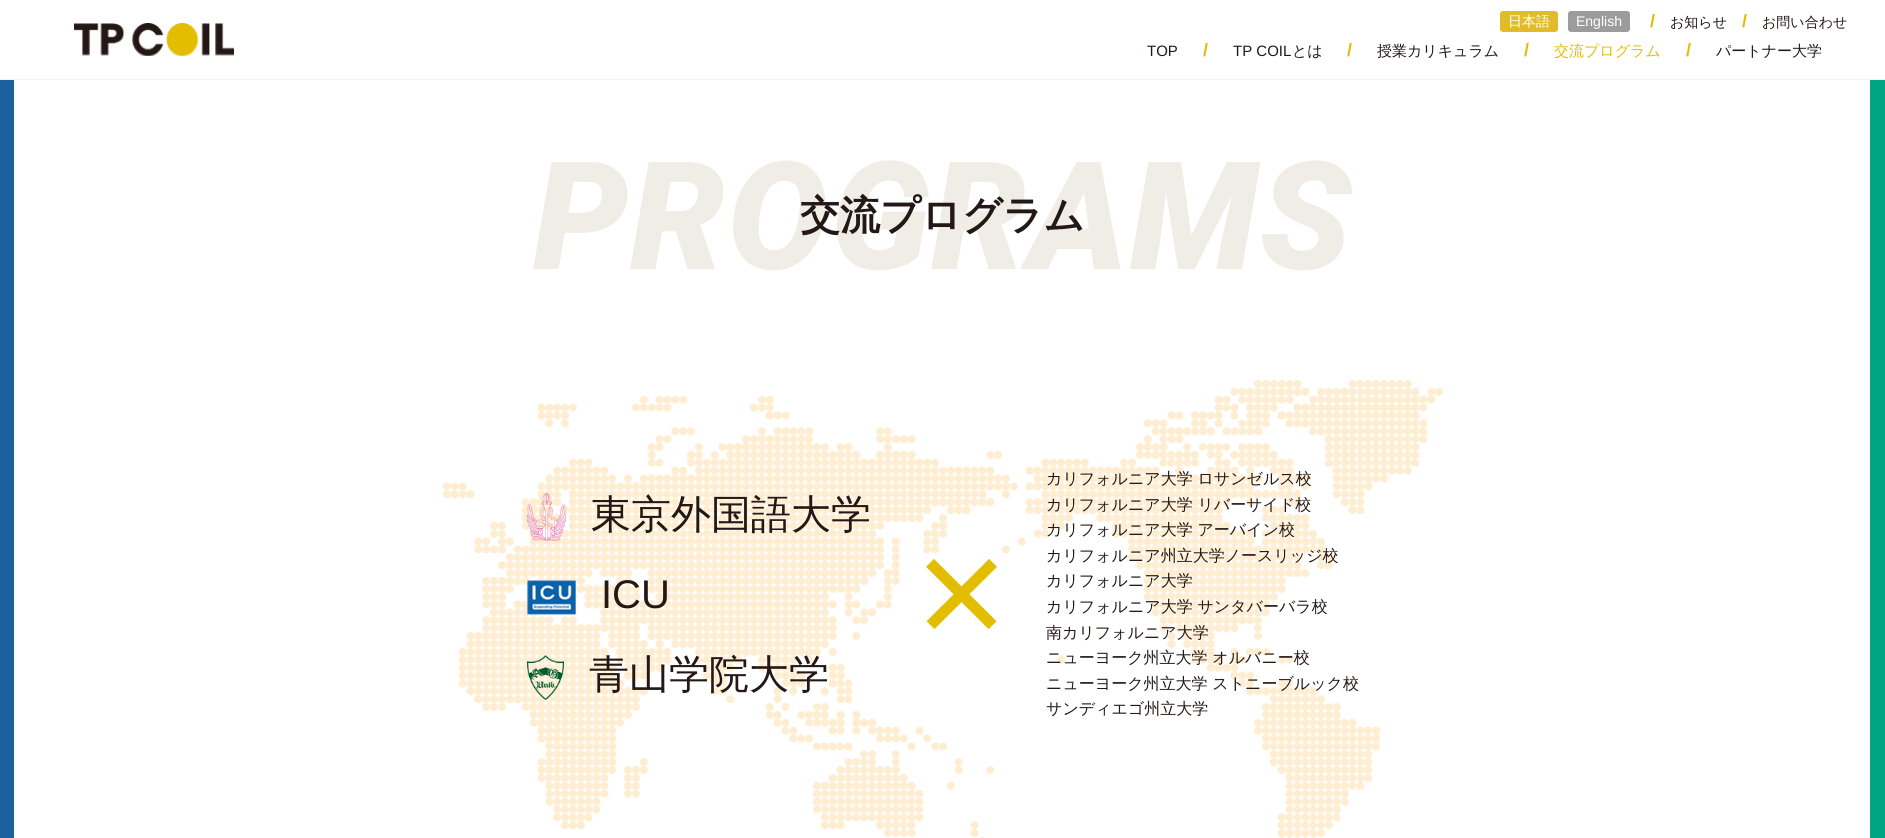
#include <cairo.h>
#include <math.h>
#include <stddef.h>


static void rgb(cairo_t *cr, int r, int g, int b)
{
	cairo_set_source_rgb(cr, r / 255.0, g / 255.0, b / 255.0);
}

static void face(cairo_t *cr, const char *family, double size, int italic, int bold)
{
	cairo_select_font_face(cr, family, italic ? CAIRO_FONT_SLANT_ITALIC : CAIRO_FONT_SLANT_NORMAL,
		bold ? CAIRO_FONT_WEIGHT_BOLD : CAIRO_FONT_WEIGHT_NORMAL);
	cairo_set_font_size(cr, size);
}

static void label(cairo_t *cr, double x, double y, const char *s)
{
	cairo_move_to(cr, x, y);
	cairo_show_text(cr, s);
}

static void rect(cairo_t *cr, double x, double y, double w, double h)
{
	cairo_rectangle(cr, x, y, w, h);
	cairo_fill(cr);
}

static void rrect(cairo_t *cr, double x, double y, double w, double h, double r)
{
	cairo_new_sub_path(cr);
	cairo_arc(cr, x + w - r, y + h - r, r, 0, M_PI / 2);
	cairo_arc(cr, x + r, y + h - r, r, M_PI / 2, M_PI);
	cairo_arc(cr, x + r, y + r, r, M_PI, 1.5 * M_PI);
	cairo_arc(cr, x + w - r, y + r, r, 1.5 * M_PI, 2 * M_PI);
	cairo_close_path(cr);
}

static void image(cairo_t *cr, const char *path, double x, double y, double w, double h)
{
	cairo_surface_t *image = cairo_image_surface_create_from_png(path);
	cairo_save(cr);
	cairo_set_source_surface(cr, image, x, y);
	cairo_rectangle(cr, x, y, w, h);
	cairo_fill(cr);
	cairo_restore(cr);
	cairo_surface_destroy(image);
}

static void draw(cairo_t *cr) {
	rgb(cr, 255, 255, 255);
	cairo_paint(cr);
	rgb(cr, 242, 242, 242);
	rect(cr, 0, 79, 1885, 1);
	image(cr, "image0.png", 74, 23, 160, 33);
	rgb(cr, 225, 187, 41);
	rrect(cr, 1500, 11, 58, 21, 3);
	cairo_fill(cr);
	face(cr, "WenQuanYi Zen Hei Medium", 14, 0, 0);
	rgb(cr, 255, 255, 255);
	label(cr, 1508, 26, "日本語");
	rgb(cr, 156, 156, 156);
	rrect(cr, 1568, 11, 62, 21, 3);
	cairo_fill(cr);
	face(cr, "Liberation Sans", 14, 0, 0);
	rgb(cr, 255, 255, 255);
	label(cr, 1576, 26, "English");
	face(cr, "Liberation Sans", 18, 0, 1);
	rgb(cr, 226, 189, 0);
	label(cr, 1650, 27, "/");
	face(cr, "WenQuanYi Zen Hei Medium", 14, 0, 0);
	rgb(cr, 35, 24, 21);
	label(cr, 1670, 27, "お知らせ");
	face(cr, "Liberation Sans", 18, 0, 1);
	rgb(cr, 226, 189, 0);
	label(cr, 1742, 27, "/");
	face(cr, "WenQuanYi Zen Hei Medium", 14, 0, 0);
	rgb(cr, 35, 24, 21);
	label(cr, 1762, 27, "お問い合わせ");
	face(cr, "Liberation Sans", 15, 0, 0);
	label(cr, 1147, 56, "TOP");
	face(cr, "Liberation Sans", 18, 0, 1);
	rgb(cr, 226, 189, 0);
	label(cr, 1203, 56, "/");
	face(cr, "Liberation Sans", 15, 0, 0);
	rgb(cr, 35, 24, 21);
	label(cr, 1233, 56, "TP COIL");
	face(cr, "WenQuanYi Zen Hei Medium", 15, 0, 0);
	label(cr, 1292, 56, "とは");
	face(cr, "Liberation Sans", 18, 0, 1);
	rgb(cr, 226, 189, 0);
	label(cr, 1347, 56, "/");
	face(cr, "WenQuanYi Zen Hei Medium", 15, 0, 0);
	rgb(cr, 35, 24, 21);
	label(cr, 1377, 56, "授業カリキュラム");
	face(cr, "Liberation Sans", 18, 0, 1);
	rgb(cr, 226, 189, 0);
	label(cr, 1524, 56, "/");
	face(cr, "WenQuanYi Zen Hei Medium", 15, 0, 0);
	label(cr, 1554, 56, "交流プログラム");
	face(cr, "Liberation Sans", 18, 0, 1);
	label(cr, 1686, 56, "/");
	face(cr, "WenQuanYi Zen Hei Medium", 15, 0, 0);
	rgb(cr, 35, 24, 21);
	label(cr, 1716, 56, "パートナー大学");
	rgb(cr, 27, 97, 158);
	rect(cr, 0, 80, 14, 758);
	image(cr, "image1.png", 533, 160, 819, 111);
	face(cr, "WenQuanYi Zen Hei", 40, 0, 1);
	rgb(cr, 35, 24, 21);
	label(cr, 800, 229, "交流プログラム");
	image(cr, "image2.png", 443, 380, 1000, 458);
	image(cr, "image3.png", 527, 493, 39, 48);
	face(cr, "WenQuanYi Zen Hei Medium", 40, 0, 0);
	label(cr, 591, 528, "東京外国語大学");
	image(cr, "image4.png", 527, 580, 49, 35);
	face(cr, "Liberation Sans", 40, 0, 0);
	label(cr, 601, 608, "ICU");
	image(cr, "image5.png", 527, 655, 37, 45);
	face(cr, "WenQuanYi Zen Hei Medium", 40, 0, 0);
	label(cr, 589, 688, "青山学院大学");
	face(cr, "WenQuanYi Zen Hei Medium", 16, 0, 0);
	label(cr, 1046, 484, "カリフォルニア大学 ロサンゼルス校");
	label(cr, 1046, 510, "カリフォルニア大学 リバーサイド校");
	label(cr, 1046, 535, "カリフォルニア大学 アーバイン校");
	label(cr, 1046, 561, "カリフォルニア州立大学ノースリッジ校");
	image(cr, "image6.png", 926, 559, 71, 70);
	label(cr, 1046, 586, "カリフォルニア大学");
	label(cr, 1046, 612, "カリフォルニア大学 サンタバーバラ校");
	label(cr, 1046, 638, "南カリフォルニア大学");
	label(cr, 1046, 663, "ニューヨーク州立大学 オルバニー校");
	label(cr, 1046, 689, "ニューヨーク州立大学 ストニーブルック校");
	label(cr, 1046, 714, "サンディエゴ州立大学");
	rgb(cr, 0, 164, 132);
	rect(cr, 1870, 80, 15, 758);
}

int main(void) {
	cairo_surface_t *surface = cairo_image_surface_create(CAIRO_FORMAT_RGB24, 1885, 838);
	cairo_t *cr = cairo_create(surface);
	cairo_font_options_t *options = cairo_font_options_create();
	cairo_font_options_set_hint_metrics(options, CAIRO_HINT_METRICS_OFF);
	cairo_font_options_set_hint_style(options, CAIRO_HINT_STYLE_NONE);
	cairo_set_font_options(cr, options);
	cairo_set_miter_limit(cr, 4);
	draw(cr);
	cairo_surface_write_to_png(surface, "render.png");
	cairo_font_options_destroy(options);
	cairo_destroy(cr);
	cairo_surface_destroy(surface);
	return 0;
}
